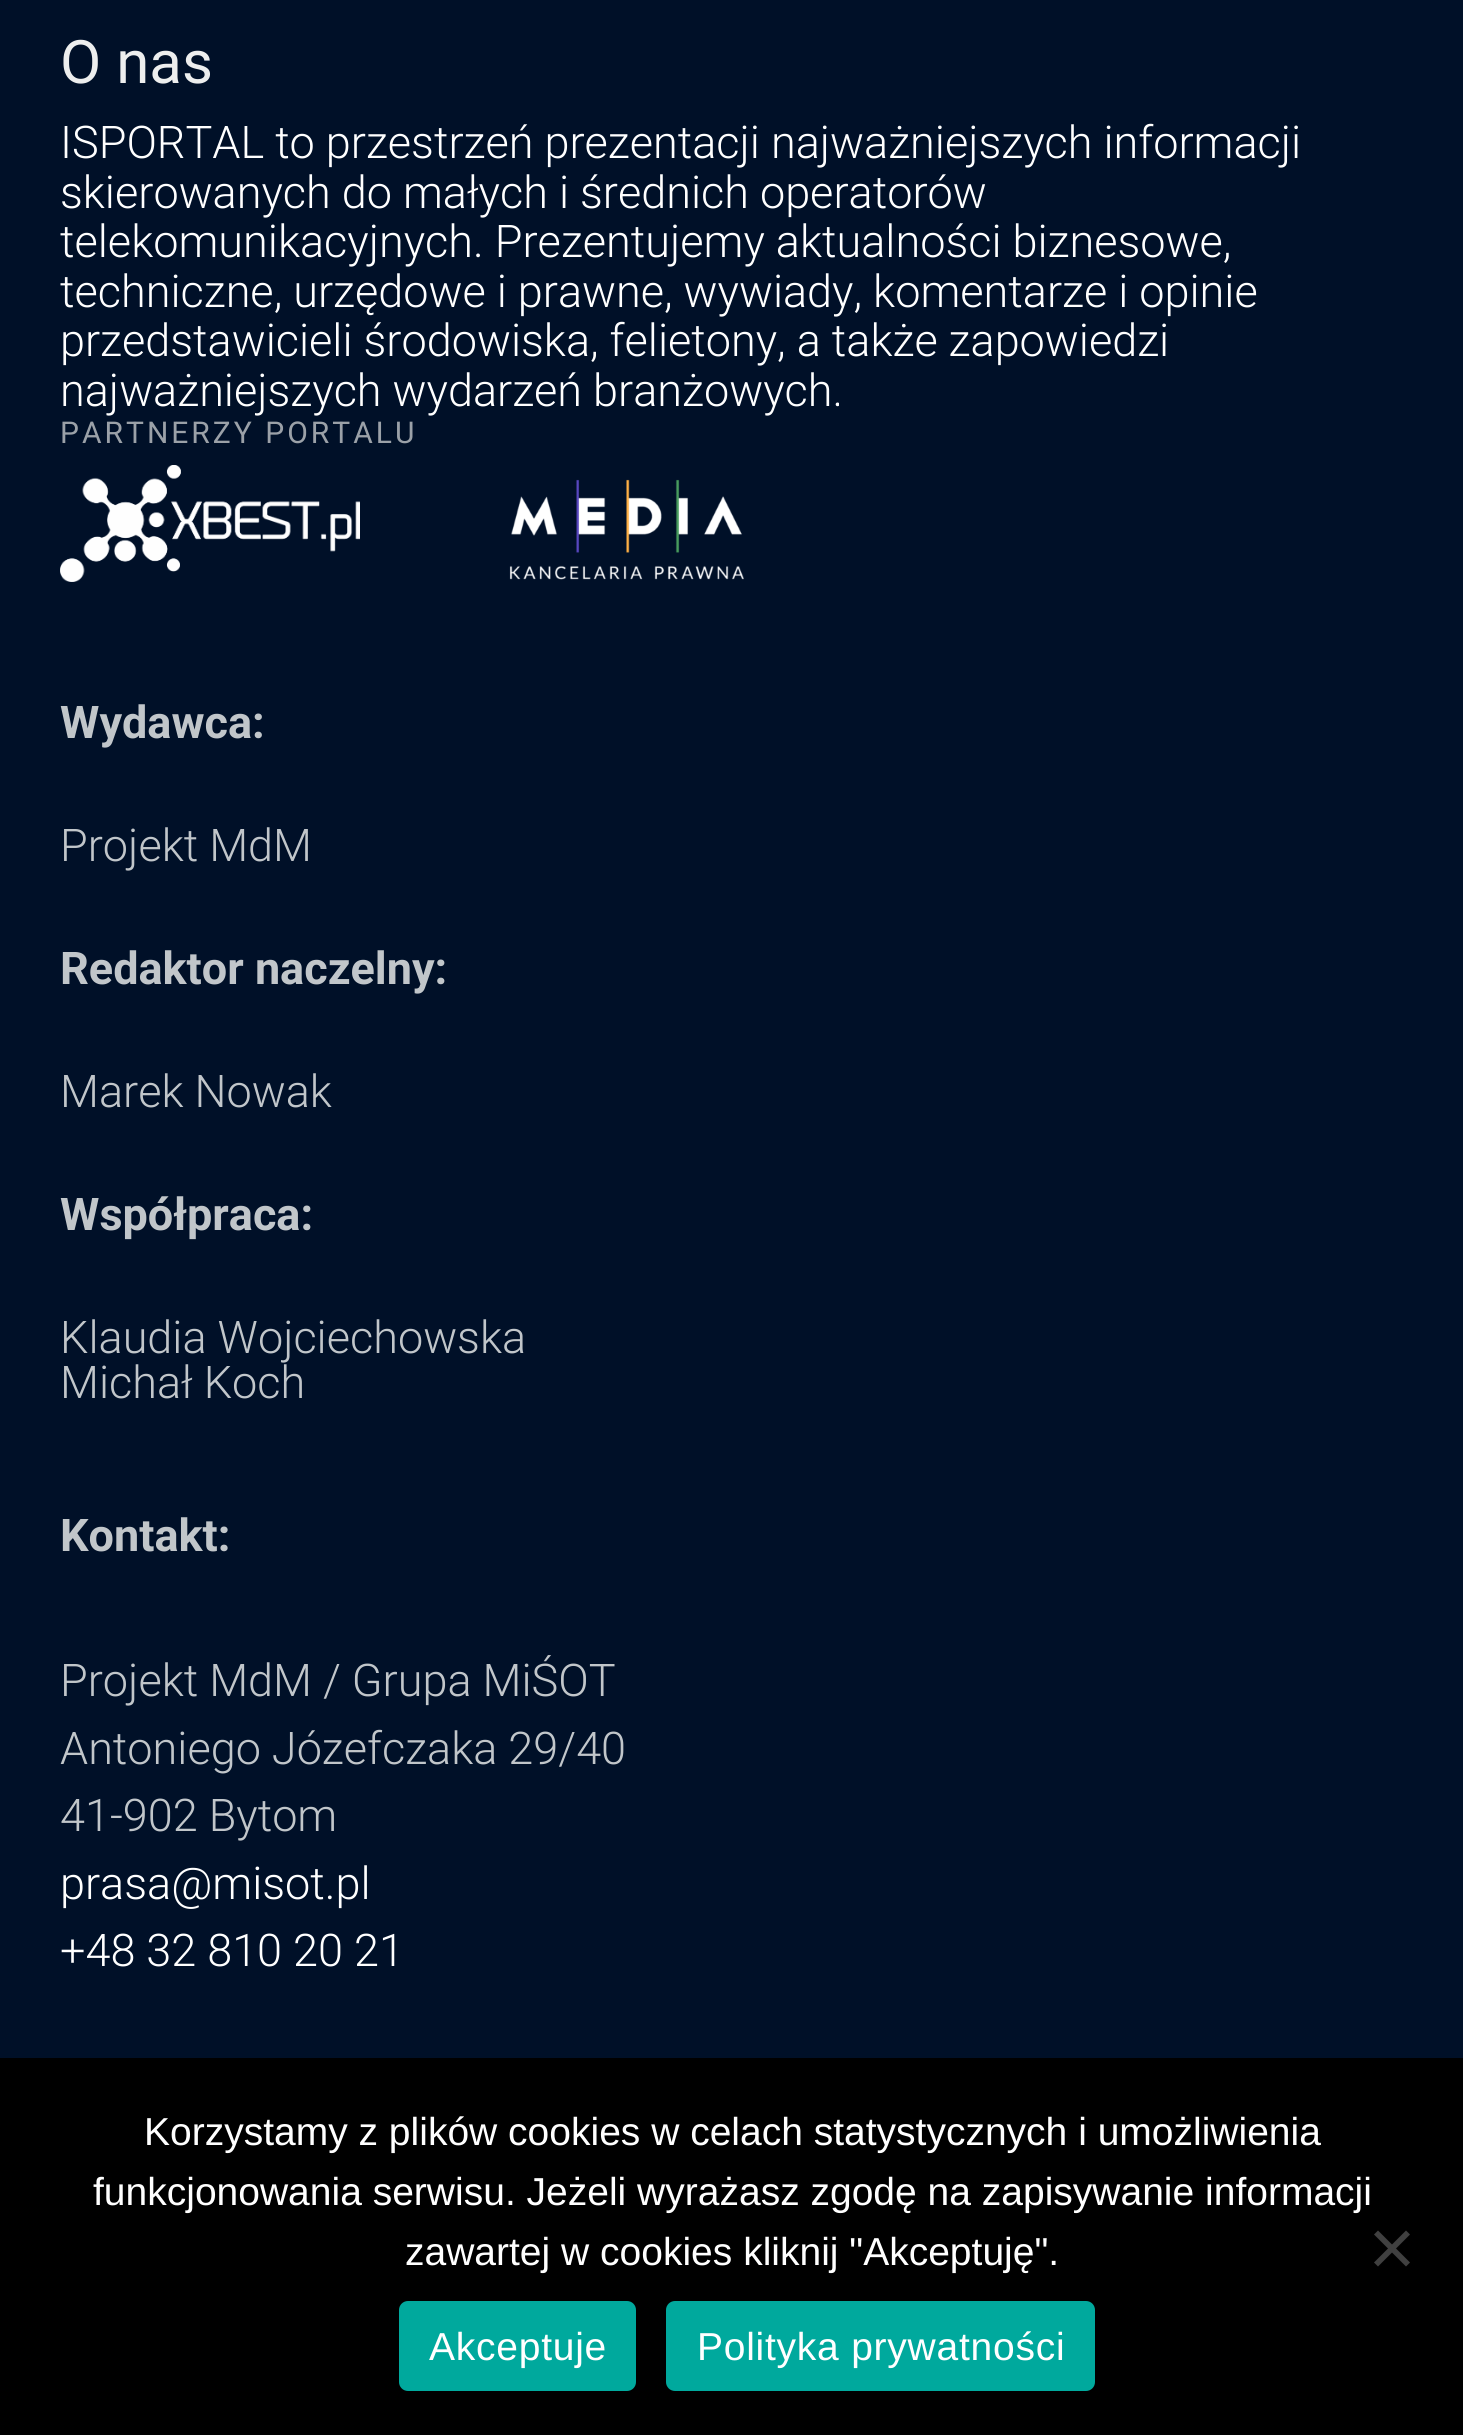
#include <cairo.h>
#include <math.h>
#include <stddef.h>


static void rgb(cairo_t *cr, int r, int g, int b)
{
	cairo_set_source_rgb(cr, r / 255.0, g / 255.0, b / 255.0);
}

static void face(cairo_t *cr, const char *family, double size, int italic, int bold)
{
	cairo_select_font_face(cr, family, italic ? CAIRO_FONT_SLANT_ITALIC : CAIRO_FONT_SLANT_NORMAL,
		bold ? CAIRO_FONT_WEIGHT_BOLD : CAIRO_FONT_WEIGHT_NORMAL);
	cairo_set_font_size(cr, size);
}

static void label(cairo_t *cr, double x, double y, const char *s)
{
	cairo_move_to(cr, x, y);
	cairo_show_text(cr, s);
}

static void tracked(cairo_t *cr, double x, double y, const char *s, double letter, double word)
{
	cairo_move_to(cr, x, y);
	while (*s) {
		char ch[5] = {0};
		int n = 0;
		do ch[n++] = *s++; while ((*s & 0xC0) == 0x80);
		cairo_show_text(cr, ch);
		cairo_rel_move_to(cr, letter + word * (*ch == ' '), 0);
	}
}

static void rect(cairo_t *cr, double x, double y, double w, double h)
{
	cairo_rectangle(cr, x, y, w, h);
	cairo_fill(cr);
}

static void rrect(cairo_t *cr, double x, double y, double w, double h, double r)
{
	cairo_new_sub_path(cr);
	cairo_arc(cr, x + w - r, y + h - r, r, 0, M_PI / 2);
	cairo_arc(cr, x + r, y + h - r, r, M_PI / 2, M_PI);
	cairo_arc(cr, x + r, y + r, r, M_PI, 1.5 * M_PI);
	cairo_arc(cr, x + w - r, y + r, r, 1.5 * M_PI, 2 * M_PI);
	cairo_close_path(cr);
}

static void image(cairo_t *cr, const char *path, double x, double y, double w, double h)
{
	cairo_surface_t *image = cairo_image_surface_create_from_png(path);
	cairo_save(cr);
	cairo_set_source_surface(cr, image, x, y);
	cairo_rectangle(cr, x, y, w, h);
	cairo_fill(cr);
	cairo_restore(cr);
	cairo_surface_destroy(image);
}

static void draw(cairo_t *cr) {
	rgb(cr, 0, 16, 40);
	cairo_paint(cr);
	face(cr, "Roboto", 60, 0, 0);
	rgb(cr, 237, 238, 238);
	label(cr, 60, 83, "O nas");
	face(cr, "Roboto Light", 45, 0, 0);
	rgb(cr, 255, 255, 255);
	label(cr, 60, 158, "ISPORTAL to przestrzeń prezentacji najważniejszych informacji");
	label(cr, 60, 208, "skierowanych do małych i średnich operatorów");
	label(cr, 60, 257, "telekomunikacyjnych. Prezentujemy aktualności biznesowe,");
	label(cr, 60, 307, "techniczne, urzędowe i prawne, wywiady, komentarze i opinie");
	label(cr, 60, 356, "przedstawicieli środowiska, felietony, a także zapowiedzi");
	label(cr, 60, 406, "najważniejszych wydarzeń branżowych.");
	face(cr, "Roboto", 30, 0, 0);
	rgb(cr, 155, 161, 168);
	tracked(cr, 60, 443, "PARTNERZY PORTALU", 3, 0);
	image(cr, "image0.png", 60, 465, 300, 117);
	image(cr, "image1.png", 509, 479, 235, 101);
	face(cr, "Roboto", 45, 0, 1);
	rgb(cr, 193, 198, 202);
	label(cr, 60, 738, "Wydawca:");
	face(cr, "Roboto Light", 45, 0, 0);
	label(cr, 60, 861, "Projekt MdM");
	face(cr, "Roboto", 45, 0, 1);
	label(cr, 60, 984, "Redaktor naczelny:");
	face(cr, "Roboto Light", 45, 0, 0);
	label(cr, 60, 1107, "Marek Nowak");
	face(cr, "Roboto", 45, 0, 1);
	label(cr, 60, 1230, "Współpraca:");
	face(cr, "Roboto Light", 45, 0, 0);
	label(cr, 60, 1353, "Klaudia Wojciechowska");
	label(cr, 60, 1398, "Michał Koch");
	face(cr, "Roboto", 45, 0, 1);
	label(cr, 60, 1551, "Kontakt:");
	face(cr, "Roboto Light", 45, 0, 0);
	label(cr, 60, 1696, "Projekt MdM / Grupa MiŚOT");
	label(cr, 60, 1764, "Antoniego Józefczaka 29/40");
	label(cr, 60, 1831, "41-902 Bytom");
	rgb(cr, 255, 255, 255);
	label(cr, 60, 1899, "prasa@misot.pl");
	label(cr, 60, 1966, "+48 32 810 20 21");
	rgb(cr, 0, 0, 0);
	rect(cr, 0, 2058, 1463, 377);
	face(cr, "Liberation Sans", 39, 0, 0);
	rgb(cr, 255, 255, 255);
	label(cr, 144, 2145, "Korzystamy z plików cookies w celach statystycznych i umożliwienia");
	label(cr, 93, 2205, "funkcjonowania serwisu. Jeżeli wyrażasz zgodę na zapisywanie informacji");
	label(cr, 405, 2265, "zawartej w cookies kliknij \"Akceptuję\".");
	rgb(cr, 64, 64, 64);
	cairo_new_path(cr);
	cairo_move_to(cr, 1406, 2230.5);
	cairo_line_to(cr, 1410, 2234.5);
	cairo_line_to(cr, 1378, 2266.5);
	cairo_line_to(cr, 1374, 2262.5);
	cairo_close_path(cr);
	cairo_fill(cr);
	cairo_new_path(cr);
	cairo_move_to(cr, 1374, 2234.5);
	cairo_line_to(cr, 1378, 2230.5);
	cairo_line_to(cr, 1410, 2262.5);
	cairo_line_to(cr, 1406, 2266.5);
	cairo_close_path(cr);
	cairo_fill(cr);
	rgb(cr, 0, 169, 157);
	rrect(cr, 399, 2301, 237, 90, 9);
	cairo_fill(cr);
	rgb(cr, 255, 255, 255);
	tracked(cr, 429, 2360, "Akceptuje", 0.75, 0);
	rgb(cr, 0, 169, 157);
	rrect(cr, 666, 2301, 429, 90, 9);
	cairo_fill(cr);
	rgb(cr, 255, 255, 255);
	tracked(cr, 697, 2360, "Polityka prywatności", 0.75, 0);
}

int main(void) {
	cairo_surface_t *surface = cairo_image_surface_create(CAIRO_FORMAT_RGB24, 1463, 2435);
	cairo_t *cr = cairo_create(surface);
	cairo_font_options_t *options = cairo_font_options_create();
	cairo_font_options_set_hint_metrics(options, CAIRO_HINT_METRICS_OFF);
	cairo_font_options_set_hint_style(options, CAIRO_HINT_STYLE_NONE);
	cairo_set_font_options(cr, options);
	cairo_set_miter_limit(cr, 4);
	draw(cr);
	cairo_surface_write_to_png(surface, "render.png");
	cairo_font_options_destroy(options);
	cairo_destroy(cr);
	cairo_surface_destroy(surface);
	return 0;
}
